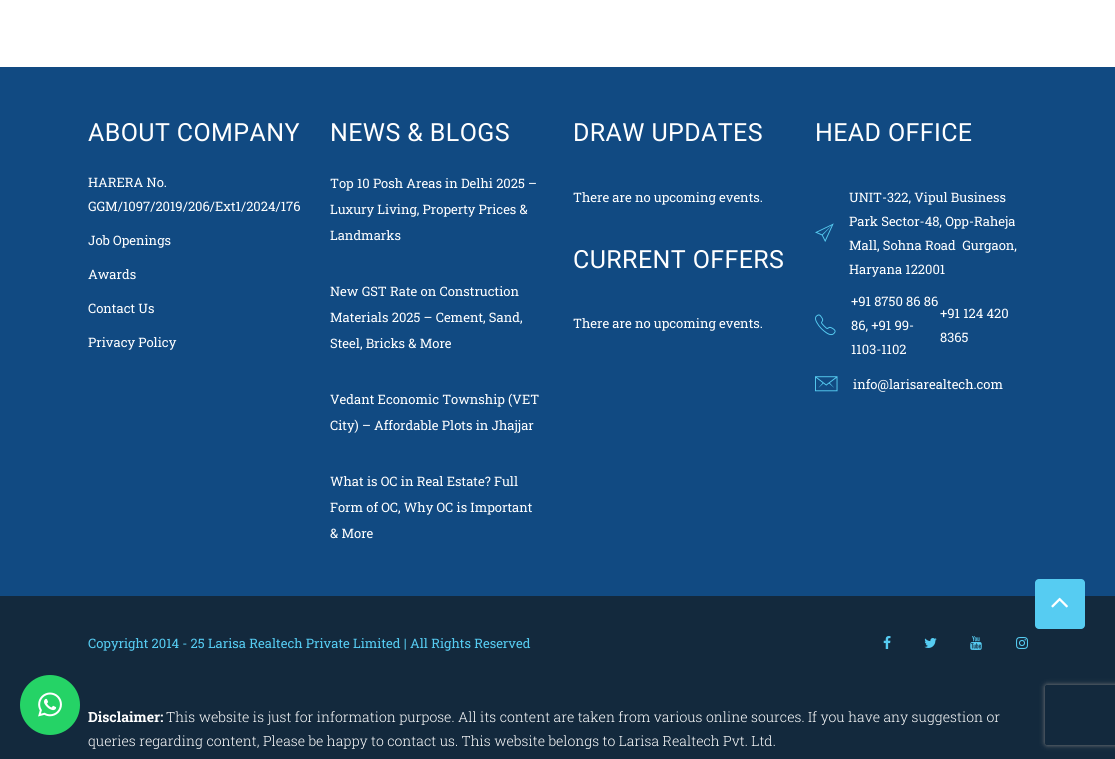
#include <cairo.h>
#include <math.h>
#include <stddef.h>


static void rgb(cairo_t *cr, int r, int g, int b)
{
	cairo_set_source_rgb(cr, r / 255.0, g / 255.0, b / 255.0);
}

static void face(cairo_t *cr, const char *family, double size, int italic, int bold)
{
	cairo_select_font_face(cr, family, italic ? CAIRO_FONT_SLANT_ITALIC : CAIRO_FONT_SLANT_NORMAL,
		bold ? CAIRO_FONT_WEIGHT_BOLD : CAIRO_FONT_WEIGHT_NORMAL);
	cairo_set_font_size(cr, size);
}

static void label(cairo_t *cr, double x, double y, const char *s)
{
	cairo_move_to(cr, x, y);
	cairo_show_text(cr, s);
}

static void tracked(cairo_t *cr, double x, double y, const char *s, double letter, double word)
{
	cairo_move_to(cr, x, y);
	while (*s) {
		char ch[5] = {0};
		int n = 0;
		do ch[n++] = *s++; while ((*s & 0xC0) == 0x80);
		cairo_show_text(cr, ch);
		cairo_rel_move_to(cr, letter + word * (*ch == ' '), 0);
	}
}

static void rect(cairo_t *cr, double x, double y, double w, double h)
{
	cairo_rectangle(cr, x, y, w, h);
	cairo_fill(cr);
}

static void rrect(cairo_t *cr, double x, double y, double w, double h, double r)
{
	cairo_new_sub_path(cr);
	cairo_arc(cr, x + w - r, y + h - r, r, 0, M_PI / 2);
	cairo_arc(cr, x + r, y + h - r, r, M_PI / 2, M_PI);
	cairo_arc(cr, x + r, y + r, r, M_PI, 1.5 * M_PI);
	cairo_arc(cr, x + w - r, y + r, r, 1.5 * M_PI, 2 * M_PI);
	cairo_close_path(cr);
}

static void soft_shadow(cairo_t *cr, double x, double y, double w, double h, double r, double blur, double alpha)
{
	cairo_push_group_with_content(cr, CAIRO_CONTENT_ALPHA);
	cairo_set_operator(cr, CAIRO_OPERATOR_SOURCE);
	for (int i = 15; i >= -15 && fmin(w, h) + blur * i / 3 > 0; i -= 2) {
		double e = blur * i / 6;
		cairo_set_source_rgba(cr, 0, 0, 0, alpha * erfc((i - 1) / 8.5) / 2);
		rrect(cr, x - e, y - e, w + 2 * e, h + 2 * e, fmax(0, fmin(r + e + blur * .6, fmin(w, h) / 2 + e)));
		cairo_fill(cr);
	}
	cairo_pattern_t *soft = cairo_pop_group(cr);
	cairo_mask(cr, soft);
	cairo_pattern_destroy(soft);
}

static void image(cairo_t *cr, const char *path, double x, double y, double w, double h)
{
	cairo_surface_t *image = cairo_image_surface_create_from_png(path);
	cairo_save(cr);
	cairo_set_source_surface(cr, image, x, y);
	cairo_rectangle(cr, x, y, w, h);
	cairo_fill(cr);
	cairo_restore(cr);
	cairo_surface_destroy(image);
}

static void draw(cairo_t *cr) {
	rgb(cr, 255, 255, 255);
	cairo_paint(cr);
	rgb(cr, 19, 41, 61);
	rect(cr, 0, 596, 1115, 163);
	rgb(cr, 37, 211, 102);
	cairo_arc(cr, 50, 705, 30, 0, 2 * M_PI);
	cairo_fill(cr);
	image(cr, "image0.png", 38, 692, 24, 25);
	rgb(cr, 17, 74, 130);
	rect(cr, 0, 67, 1115, 529);
	face(cr, "Roboto", 25, 0, 0);
	rgb(cr, 255, 255, 255);
	tracked(cr, 88, 141, "ABOUT COMPANY", 0.4, 0);
	face(cr, "Roboto Slab", 13, 0, 0);
	label(cr, 88, 187, "HARERA No.");
	label(cr, 88, 211, "GGM/1097/2019/206/Ext1/2024/176");
	label(cr, 88, 245, "Job Openings");
	label(cr, 88, 279, "Awards");
	label(cr, 88, 313, "Contact Us");
	label(cr, 88, 347, "Privacy Policy");
	face(cr, "Roboto", 25, 0, 0);
	tracked(cr, 330, 141, "NEWS & BLOGS", 0.4, 0);
	face(cr, "Roboto Slab", 13, 0, 0);
	label(cr, 330, 188, "Top 10 Posh Areas in Delhi 2025 –");
	label(cr, 330, 214, "Luxury Living, Property Prices &");
	label(cr, 330, 240, "Landmarks");
	label(cr, 330, 296, "New GST Rate on Construction");
	label(cr, 330, 322, "Materials 2025 – Cement, Sand,");
	label(cr, 330, 348, "Steel, Bricks & More");
	label(cr, 330, 404, "Vedant Economic Township (VET");
	label(cr, 330, 430, "City) – Affordable Plots in Jhajjar");
	label(cr, 330, 486, "What is OC in Real Estate? Full");
	label(cr, 330, 512, "Form of OC, Why OC is Important");
	label(cr, 330, 538, "& More");
	face(cr, "Roboto", 25, 0, 0);
	tracked(cr, 573, 141, "DRAW UPDATES", 0.4, 0);
	face(cr, "Roboto Slab", 13, 0, 0);
	label(cr, 573, 202, "There are no upcoming events.");
	face(cr, "Roboto", 25, 0, 0);
	tracked(cr, 573, 268, "CURRENT OFFERS", 0.4, 0);
	face(cr, "Roboto Slab", 13, 0, 0);
	label(cr, 573, 328, "There are no upcoming events.");
	face(cr, "Roboto", 25, 0, 0);
	tracked(cr, 815, 141, "HEAD OFFICE", 0.4, 0);
	image(cr, "image1.png", 815, 223, 19, 19);
	face(cr, "Roboto Slab", 13, 0, 0);
	label(cr, 849, 202, "UNIT-322, Vipul Business");
	label(cr, 849, 226, "Park Sector-48, Opp-Raheja");
	label(cr, 849, 250, "Mall, Sohna Road  Gurgaon,");
	label(cr, 849, 274, "Haryana 122001");
	image(cr, "image2.png", 815, 314, 21, 22);
	label(cr, 851, 306, "+91 8750 86 86");
	label(cr, 851, 330, "86, +91 99-");
	label(cr, 851, 354, "1103-1102");
	label(cr, 940, 318, "+91 124 420");
	label(cr, 940, 342, "8365");
	image(cr, "image3.png", 815, 376, 23, 16);
	label(cr, 853, 389, "info@larisarealtech.com");
	rgb(cr, 86, 204, 242);
	label(cr, 88, 648, "Copyright 2014 - 25 Larisa Realtech Private Limited | All Rights Reserved");
	image(cr, "image4.png", 883, 636, 8, 13);
	image(cr, "image5.png", 924, 638, 13, 10);
	image(cr, "image6.png", 970, 636, 12, 14);
	image(cr, "image7.png", 1016, 637, 12, 12);
	face(cr, "Roboto Slab", 14, 0, 1);
	rgb(cr, 255, 255, 255);
	label(cr, 88, 722, "Disclaimer:");
	face(cr, "Roboto Slab Light", 14, 0, 0);
	label(cr, 166, 722, "This website is just for information purpose. All its content are taken from various online sources. If you have any suggestion or");
	label(cr, 88, 746, "queries regarding content, Please be happy to contact us. This website belongs to Larisa Realtech Pvt. Ltd.");
	rgb(cr, 86, 204, 242);
	rrect(cr, 1035, 579, 50, 50, 4);
	cairo_fill(cr);
	image(cr, "image8.png", 1051, 597, 17, 11);
	cairo_save(cr);
	cairo_set_fill_rule(cr, CAIRO_FILL_RULE_EVEN_ODD);
	cairo_new_path(cr);
	cairo_move_to(cr, 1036, 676);
	cairo_line_to(cr, 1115, 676);
	cairo_line_to(cr, 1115, 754);
	cairo_line_to(cr, 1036, 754);
	cairo_close_path(cr);
	cairo_move_to(cr, 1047, 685);
	cairo_line_to(cr, 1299, 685);
	cairo_curve_to(cr, 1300, 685, 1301, 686, 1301, 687);
	cairo_line_to(cr, 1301, 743);
	cairo_curve_to(cr, 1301, 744, 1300, 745, 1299, 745);
	cairo_line_to(cr, 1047, 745);
	cairo_curve_to(cr, 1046, 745, 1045, 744, 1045, 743);
	cairo_line_to(cr, 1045, 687);
	cairo_curve_to(cr, 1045, 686, 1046, 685, 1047, 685);
	cairo_close_path(cr);
	cairo_clip(cr);
	rgb(cr, 128, 128, 128);
	soft_shadow(cr, 1045, 685, 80, 60, 2, 2.5, 1);
	cairo_restore(cr);
}

int main(void) {
	cairo_surface_t *surface = cairo_image_surface_create(CAIRO_FORMAT_RGB24, 1115, 759);
	cairo_t *cr = cairo_create(surface);
	cairo_font_options_t *options = cairo_font_options_create();
	cairo_font_options_set_hint_metrics(options, CAIRO_HINT_METRICS_OFF);
	cairo_font_options_set_hint_style(options, CAIRO_HINT_STYLE_NONE);
	cairo_set_font_options(cr, options);
	cairo_set_miter_limit(cr, 4);
	draw(cr);
	cairo_surface_write_to_png(surface, "render.png");
	cairo_font_options_destroy(options);
	cairo_destroy(cr);
	cairo_surface_destroy(surface);
	return 0;
}
